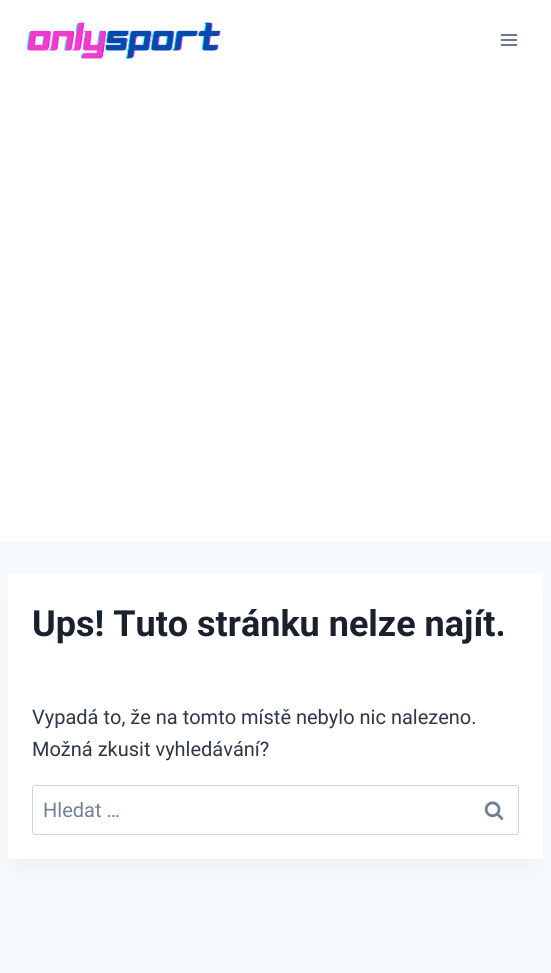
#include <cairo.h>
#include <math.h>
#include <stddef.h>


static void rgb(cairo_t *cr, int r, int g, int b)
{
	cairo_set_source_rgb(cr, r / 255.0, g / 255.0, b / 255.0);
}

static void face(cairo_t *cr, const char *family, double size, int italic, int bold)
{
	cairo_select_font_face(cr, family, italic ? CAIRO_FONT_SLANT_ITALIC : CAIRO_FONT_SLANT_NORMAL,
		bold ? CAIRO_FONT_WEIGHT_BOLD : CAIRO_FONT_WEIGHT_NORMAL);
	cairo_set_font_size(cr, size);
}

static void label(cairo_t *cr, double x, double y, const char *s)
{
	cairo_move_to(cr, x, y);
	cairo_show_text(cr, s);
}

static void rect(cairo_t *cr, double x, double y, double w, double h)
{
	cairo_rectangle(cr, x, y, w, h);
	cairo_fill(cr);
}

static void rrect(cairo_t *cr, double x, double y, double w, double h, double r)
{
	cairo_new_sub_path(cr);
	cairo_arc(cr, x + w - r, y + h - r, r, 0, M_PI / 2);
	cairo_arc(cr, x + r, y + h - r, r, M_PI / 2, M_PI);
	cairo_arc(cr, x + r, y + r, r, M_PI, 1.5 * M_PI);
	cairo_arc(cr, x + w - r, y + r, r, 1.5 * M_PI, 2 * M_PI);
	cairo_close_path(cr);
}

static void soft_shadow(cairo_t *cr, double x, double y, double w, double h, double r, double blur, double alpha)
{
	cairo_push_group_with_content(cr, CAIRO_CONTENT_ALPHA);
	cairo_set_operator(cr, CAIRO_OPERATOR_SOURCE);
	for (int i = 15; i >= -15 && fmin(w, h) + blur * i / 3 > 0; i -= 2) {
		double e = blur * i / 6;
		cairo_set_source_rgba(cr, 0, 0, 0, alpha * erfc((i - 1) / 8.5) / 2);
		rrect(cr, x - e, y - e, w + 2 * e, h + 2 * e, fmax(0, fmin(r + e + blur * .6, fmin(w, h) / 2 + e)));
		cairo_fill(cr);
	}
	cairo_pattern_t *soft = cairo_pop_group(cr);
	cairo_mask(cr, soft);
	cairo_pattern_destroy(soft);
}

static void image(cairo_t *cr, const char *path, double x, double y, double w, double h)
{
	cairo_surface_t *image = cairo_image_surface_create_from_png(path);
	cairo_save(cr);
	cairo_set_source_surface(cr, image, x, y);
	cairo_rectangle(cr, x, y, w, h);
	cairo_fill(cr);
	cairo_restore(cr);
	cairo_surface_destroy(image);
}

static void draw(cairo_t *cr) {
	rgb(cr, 247, 250, 252);
	cairo_paint(cr);
	rgb(cr, 255, 255, 255);
	rect(cr, 0, 0, 551, 541);
	image(cr, "image0.png", 26, 22, 195, 37);
	image(cr, "image1.png", 500, 34, 18, 12);
	rgb(cr, 0, 0, 0);
	soft_shadow(cr, 18, 598, 515, 266, 0, 12.5, 0.05);
	rgb(cr, 255, 255, 255);
	rrect(cr, 8, 573, 535, 286, 4);
	cairo_fill(cr);
	face(cr, "Roboto", 36, 0, 1);
	rgb(cr, 26, 32, 44);
	label(cr, 32, 636, "Ups! Tuto stránku nelze najít.");
	face(cr, "Roboto", 20, 0, 0);
	rgb(cr, 45, 55, 72);
	label(cr, 32, 724, "Vypadá to, že na tomto místě nebylo nic nalezeno.");
	label(cr, 32, 756, "Možná zkusit vyhledávání?");
	rrect(cr, 32.5, 785.5, 486, 49, 2.5);
	rgb(cr, 203, 213, 224);
	cairo_set_line_width(cr, 1);
	cairo_stroke(cr);
	rgb(cr, 113, 128, 150);
	label(cr, 43, 817, "Hledat …");
	image(cr, "image2.png", 484, 801, 20, 19);
}

int main(void) {
	cairo_surface_t *surface = cairo_image_surface_create(CAIRO_FORMAT_RGB24, 551, 973);
	cairo_t *cr = cairo_create(surface);
	cairo_font_options_t *options = cairo_font_options_create();
	cairo_font_options_set_hint_metrics(options, CAIRO_HINT_METRICS_OFF);
	cairo_font_options_set_hint_style(options, CAIRO_HINT_STYLE_NONE);
	cairo_set_font_options(cr, options);
	cairo_set_miter_limit(cr, 4);
	draw(cr);
	cairo_surface_write_to_png(surface, "render.png");
	cairo_font_options_destroy(options);
	cairo_destroy(cr);
	cairo_surface_destroy(surface);
	return 0;
}
